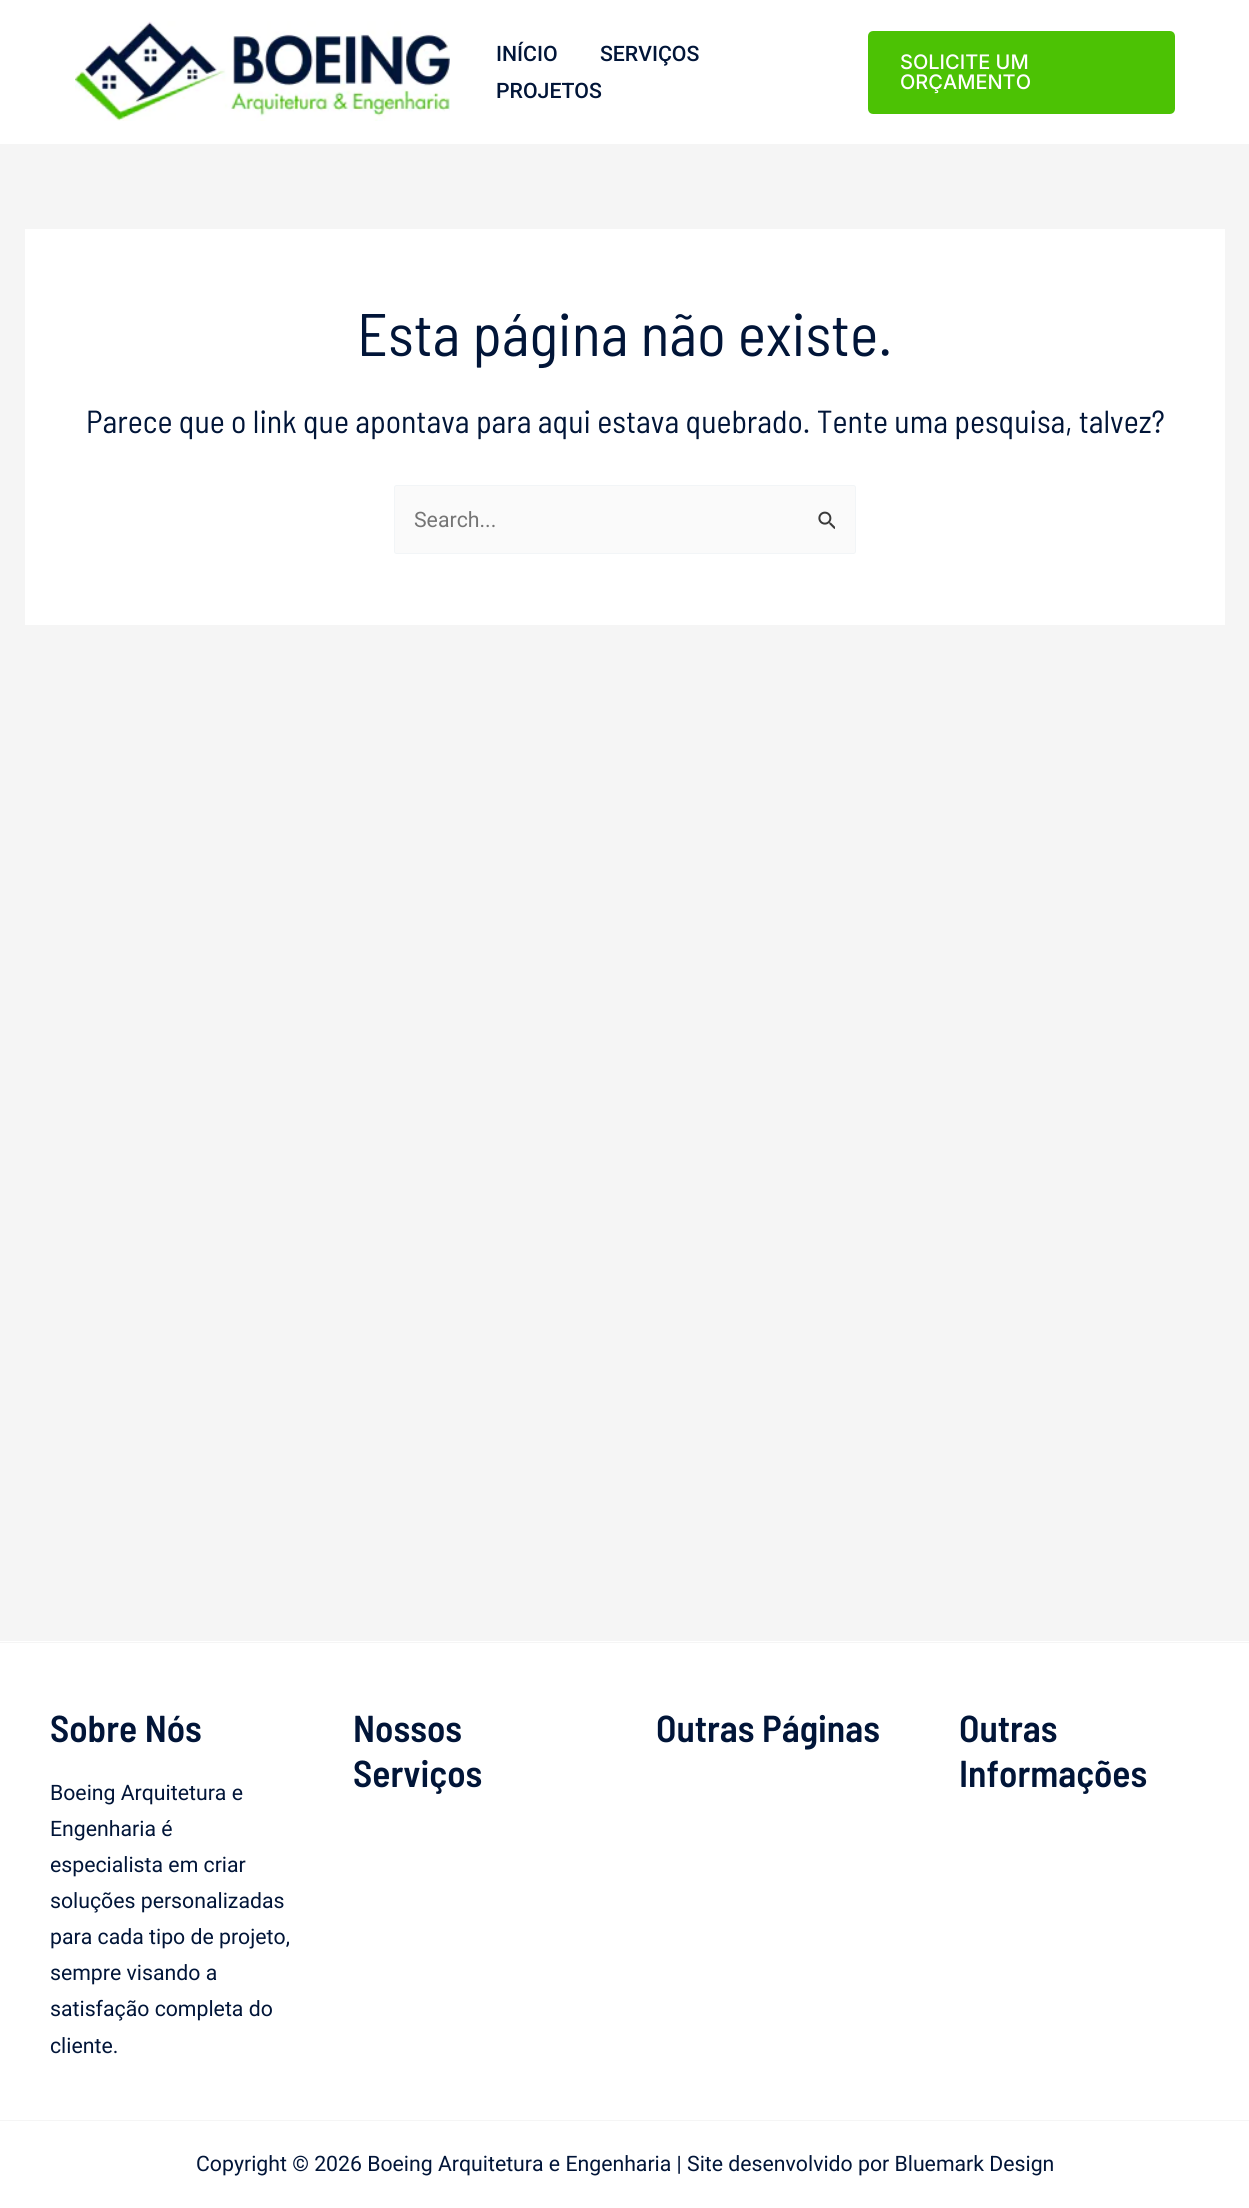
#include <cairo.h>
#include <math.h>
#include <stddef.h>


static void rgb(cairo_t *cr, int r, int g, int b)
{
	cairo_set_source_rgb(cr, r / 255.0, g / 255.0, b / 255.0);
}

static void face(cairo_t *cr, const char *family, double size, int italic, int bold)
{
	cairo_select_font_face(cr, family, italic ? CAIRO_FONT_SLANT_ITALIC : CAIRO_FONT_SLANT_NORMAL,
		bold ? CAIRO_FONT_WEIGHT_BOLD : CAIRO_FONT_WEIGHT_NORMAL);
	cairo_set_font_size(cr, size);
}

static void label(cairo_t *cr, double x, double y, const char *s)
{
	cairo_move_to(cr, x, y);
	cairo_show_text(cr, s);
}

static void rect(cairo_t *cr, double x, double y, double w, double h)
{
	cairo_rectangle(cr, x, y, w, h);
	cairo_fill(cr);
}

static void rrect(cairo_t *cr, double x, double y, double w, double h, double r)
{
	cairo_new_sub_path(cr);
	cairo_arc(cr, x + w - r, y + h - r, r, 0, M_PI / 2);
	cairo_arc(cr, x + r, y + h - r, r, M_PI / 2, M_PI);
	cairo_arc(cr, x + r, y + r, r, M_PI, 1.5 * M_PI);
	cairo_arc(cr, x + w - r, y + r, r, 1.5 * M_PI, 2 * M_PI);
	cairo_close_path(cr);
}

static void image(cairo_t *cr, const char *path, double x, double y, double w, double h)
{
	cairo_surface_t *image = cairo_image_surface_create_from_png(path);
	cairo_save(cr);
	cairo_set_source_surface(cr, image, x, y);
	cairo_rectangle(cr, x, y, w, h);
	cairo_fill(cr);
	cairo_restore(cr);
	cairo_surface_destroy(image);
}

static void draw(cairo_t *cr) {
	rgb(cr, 245, 245, 245);
	cairo_paint(cr);
	rgb(cr, 255, 255, 255);
	rect(cr, 0, 0, 1249, 144);
	image(cr, "image0.png", 75, 21, 375, 100);
	face(cr, "Roboto Medium", 21.25, 0, 0);
	rgb(cr, 1, 21, 56);
	label(cr, 496, 61, "INÍCIO");
	label(cr, 600, 61, "SERVIÇOS");
	label(cr, 496, 98, "PROJETOS");
	rgb(cr, 76, 194, 4);
	rrect(cr, 869.5, 32.5, 304, 80, 3.5);
	cairo_fill_preserve(cr);
	cairo_set_line_width(cr, 3);
	cairo_stroke(cr);
	face(cr, "Inter Medium", 20, 0, 0);
	rgb(cr, 255, 255, 255);
	label(cr, 900, 69, "SOLICITE UM");
	label(cr, 900, 89, "ORÇAMENTO");
	rect(cr, 25, 229, 1200, 396);
	face(cr, "Barlow Semi Condensed", 60, 0, 0);
	rgb(cr, 1, 21, 56);
	label(cr, 357, 356, "Esta página não existe.");
	face(cr, "Barlow Semi Condensed", 31.9, 0, 0);
	label(cr, 86, 433, "Parece que o link que apontava para aqui estava quebrado. Tente uma pesquisa, talvez?");
	rgb(cr, 250, 250, 250);
	rrect(cr, 394.5, 485.5, 461, 68, 2);
	cairo_fill_preserve(cr);
	rgb(cr, 242, 245, 247);
	cairo_set_line_width(cr, 1);
	cairo_stroke(cr);
	face(cr, "Roboto", 21.25, 0, 0);
	rgb(cr, 117, 117, 117);
	label(cr, 414, 527, "Search...");
	image(cr, "image1.png", 818, 511, 17, 18);
	rgb(cr, 255, 255, 255);
	rect(cr, 0, 1643, 1249, 477);
	rect(cr, 0, 1641, 1249, 1);
	face(cr, "Barlow Semi Condensed SemiBold", 37.5, 0, 0);
	rgb(cr, 1, 21, 56);
	label(cr, 50, 1742, "Sobre Nós");
	face(cr, "Roboto", 21.25, 0, 0);
	label(cr, 50, 1800, "Boeing Arquitetura e");
	label(cr, 50, 1836, "Engenharia é");
	label(cr, 50, 1872, "especialista em criar");
	label(cr, 50, 1908, "soluções personalizadas");
	label(cr, 50, 1944, "para cada tipo de projeto,");
	label(cr, 50, 1980, "sempre visando a");
	label(cr, 50, 2016, "satisfação completa do");
	label(cr, 50, 2053, "cliente.");
	face(cr, "Barlow Semi Condensed SemiBold", 37.5, 0, 0);
	label(cr, 353, 1742, "Nossos");
	label(cr, 353, 1787, "Serviços");
	label(cr, 656, 1742, "Outras Páginas");
	label(cr, 959, 1742, "Outras");
	label(cr, 959, 1787, "Informações");
	rgb(cr, 255, 255, 255);
	rect(cr, 0, 2121, 1249, 87);
	face(cr, "Roboto", 21.25, 0, 0);
	rgb(cr, 1, 21, 56);
	label(cr, 196, 2171, "Copyright © 2026 Boeing Arquitetura e Engenharia | Site desenvolvido por Bluemark Design");
}

int main(void) {
	cairo_surface_t *surface = cairo_image_surface_create(CAIRO_FORMAT_RGB24, 1249, 2208);
	cairo_t *cr = cairo_create(surface);
	cairo_font_options_t *options = cairo_font_options_create();
	cairo_font_options_set_hint_metrics(options, CAIRO_HINT_METRICS_OFF);
	cairo_font_options_set_hint_style(options, CAIRO_HINT_STYLE_NONE);
	cairo_set_font_options(cr, options);
	cairo_set_miter_limit(cr, 4);
	draw(cr);
	cairo_surface_write_to_png(surface, "render.png");
	cairo_font_options_destroy(options);
	cairo_destroy(cr);
	cairo_surface_destroy(surface);
	return 0;
}
